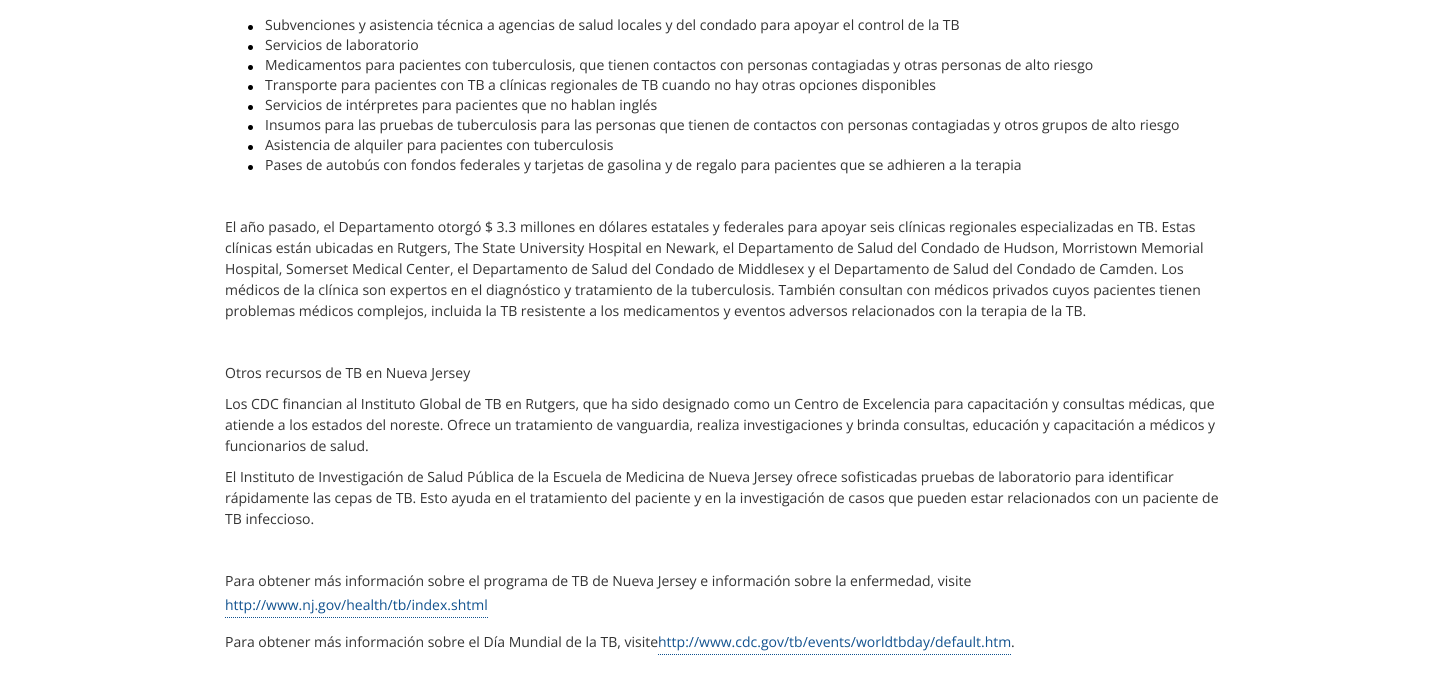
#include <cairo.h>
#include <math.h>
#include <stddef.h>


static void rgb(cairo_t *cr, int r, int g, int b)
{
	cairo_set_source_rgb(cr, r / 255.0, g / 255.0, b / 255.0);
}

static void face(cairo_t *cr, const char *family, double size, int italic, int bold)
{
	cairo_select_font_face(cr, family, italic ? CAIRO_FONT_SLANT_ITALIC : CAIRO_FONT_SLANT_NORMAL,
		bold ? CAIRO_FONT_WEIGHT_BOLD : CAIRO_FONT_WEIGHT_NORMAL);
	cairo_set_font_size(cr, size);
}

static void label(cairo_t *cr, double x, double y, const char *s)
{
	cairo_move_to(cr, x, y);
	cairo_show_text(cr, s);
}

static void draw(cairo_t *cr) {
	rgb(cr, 255, 255, 255);
	cairo_paint(cr);
	rgb(cr, 0, 0, 0);
	cairo_arc(cr, 250.5, 27.5, 2.5, 0, 2 * M_PI);
	cairo_fill(cr);
	face(cr, "Open Sans", 14, 0, 0);
	rgb(cr, 51, 51, 51);
	label(cr, 265, 30, "Subvenciones y asistencia técnica a agencias de salud locales y del condado para apoyar el control de la TB");
	rgb(cr, 0, 0, 0);
	cairo_new_path(cr);
	cairo_arc(cr, 250.5, 47.5, 2.5, 0, 2 * M_PI);
	cairo_fill(cr);
	rgb(cr, 51, 51, 51);
	label(cr, 265, 50, "Servicios de laboratorio");
	rgb(cr, 0, 0, 0);
	cairo_new_path(cr);
	cairo_arc(cr, 250.5, 67.5, 2.5, 0, 2 * M_PI);
	cairo_fill(cr);
	rgb(cr, 51, 51, 51);
	label(cr, 265, 70, "Medicamentos para pacientes con tuberculosis, que tienen contactos con personas contagiadas y otras personas de alto riesgo");
	rgb(cr, 0, 0, 0);
	cairo_new_path(cr);
	cairo_arc(cr, 250.5, 87.5, 2.5, 0, 2 * M_PI);
	cairo_fill(cr);
	rgb(cr, 51, 51, 51);
	label(cr, 265, 90, "Transporte para pacientes con TB a clínicas regionales de TB cuando no hay otras opciones disponibles");
	rgb(cr, 0, 0, 0);
	cairo_new_path(cr);
	cairo_arc(cr, 250.5, 107.5, 2.5, 0, 2 * M_PI);
	cairo_fill(cr);
	rgb(cr, 51, 51, 51);
	label(cr, 265, 110, "Servicios de intérpretes para pacientes que no hablan inglés");
	rgb(cr, 0, 0, 0);
	cairo_new_path(cr);
	cairo_arc(cr, 250.5, 127.5, 2.5, 0, 2 * M_PI);
	cairo_fill(cr);
	rgb(cr, 51, 51, 51);
	label(cr, 265, 130, "Insumos para las pruebas de tuberculosis para las personas que tienen de contactos con personas contagiadas y otros grupos de alto riesgo");
	rgb(cr, 0, 0, 0);
	cairo_new_path(cr);
	cairo_arc(cr, 250.5, 147.5, 2.5, 0, 2 * M_PI);
	cairo_fill(cr);
	rgb(cr, 51, 51, 51);
	label(cr, 265, 150, "Asistencia de alquiler para pacientes con tuberculosis");
	rgb(cr, 0, 0, 0);
	cairo_new_path(cr);
	cairo_arc(cr, 250.5, 167.5, 2.5, 0, 2 * M_PI);
	cairo_fill(cr);
	rgb(cr, 51, 51, 51);
	label(cr, 265, 170, "Pases de autobús con fondos federales y tarjetas de gasolina y de regalo para pacientes que se adhieren a la terapia");
	label(cr, 225, 232, "El año pasado, el Departamento otorgó $ 3.3 millones en dólares estatales y federales para apoyar seis clínicas regionales especializadas en TB. Estas");
	label(cr, 225, 253, "clínicas están ubicadas en Rutgers, The State University Hospital en Newark, el Departamento de Salud del Condado de Hudson, Morristown Memorial");
	label(cr, 225, 274, "Hospital, Somerset Medical Center, el Departamento de Salud del Condado de Middlesex y el Departamento de Salud del Condado de Camden. Los");
	label(cr, 225, 295, "médicos de la clínica son expertos en el diagnóstico y tratamiento de la tuberculosis. También consultan con médicos privados cuyos pacientes tienen");
	label(cr, 225, 316, "problemas médicos complejos, incluida la TB resistente a los medicamentos y eventos adversos relacionados con la terapia de la TB.");
	label(cr, 225, 378, "Otros recursos de TB en Nueva Jersey");
	label(cr, 225, 409, "Los CDC financian al Instituto Global de TB en Rutgers, que ha sido designado como un Centro de Excelencia para capacitación y consultas médicas, que");
	label(cr, 225, 430, "atiende a los estados del noreste. Ofrece un tratamiento de vanguardia, realiza investigaciones y brinda consultas, educación y capacitación a médicos y");
	label(cr, 225, 451, "funcionarios de salud.");
	label(cr, 225, 482, "El Instituto de Investigación de Salud Pública de la Escuela de Medicina de Nueva Jersey ofrece sofisticadas pruebas de laboratorio para identificar");
	label(cr, 225, 503, "rápidamente las cepas de TB. Esto ayuda en el tratamiento del paciente y en la investigación de casos que pueden estar relacionados con un paciente de");
	label(cr, 225, 524, "TB infeccioso.");
	label(cr, 225, 586, "Para obtener más información sobre el programa de TB de Nueva Jersey e información sobre la enfermedad, visite");
	cairo_new_path(cr);
	cairo_move_to(cr, 225, 617.5);
	cairo_line_to(cr, 488, 617.5);
	rgb(cr, 17, 82, 143);
	cairo_set_line_width(cr, 1);
	cairo_set_dash(cr, (double[]){1, 1}, 2, 0);
	cairo_stroke(cr);
	label(cr, 225, 610, "http://www.nj.gov/health/tb/index.shtml");
	rgb(cr, 51, 51, 51);
	label(cr, 225, 647, "Para obtener más información sobre el Día Mundial de la TB, visite");
	cairo_new_path(cr);
	cairo_move_to(cr, 658, 654.5);
	cairo_line_to(cr, 1011, 654.5);
	rgb(cr, 17, 82, 143);
	cairo_stroke(cr);
	label(cr, 658, 647, "http://www.cdc.gov/tb/events/worldtbday/default.htm");
	rgb(cr, 51, 51, 51);
	label(cr, 1011, 647, ".");
}

int main(void) {
	cairo_surface_t *surface = cairo_image_surface_create(CAIRO_FORMAT_RGB24, 1450, 675);
	cairo_t *cr = cairo_create(surface);
	cairo_font_options_t *options = cairo_font_options_create();
	cairo_font_options_set_hint_metrics(options, CAIRO_HINT_METRICS_OFF);
	cairo_font_options_set_hint_style(options, CAIRO_HINT_STYLE_NONE);
	cairo_set_font_options(cr, options);
	cairo_set_miter_limit(cr, 4);
	draw(cr);
	cairo_surface_write_to_png(surface, "render.png");
	cairo_font_options_destroy(options);
	cairo_destroy(cr);
	cairo_surface_destroy(surface);
	return 0;
}
